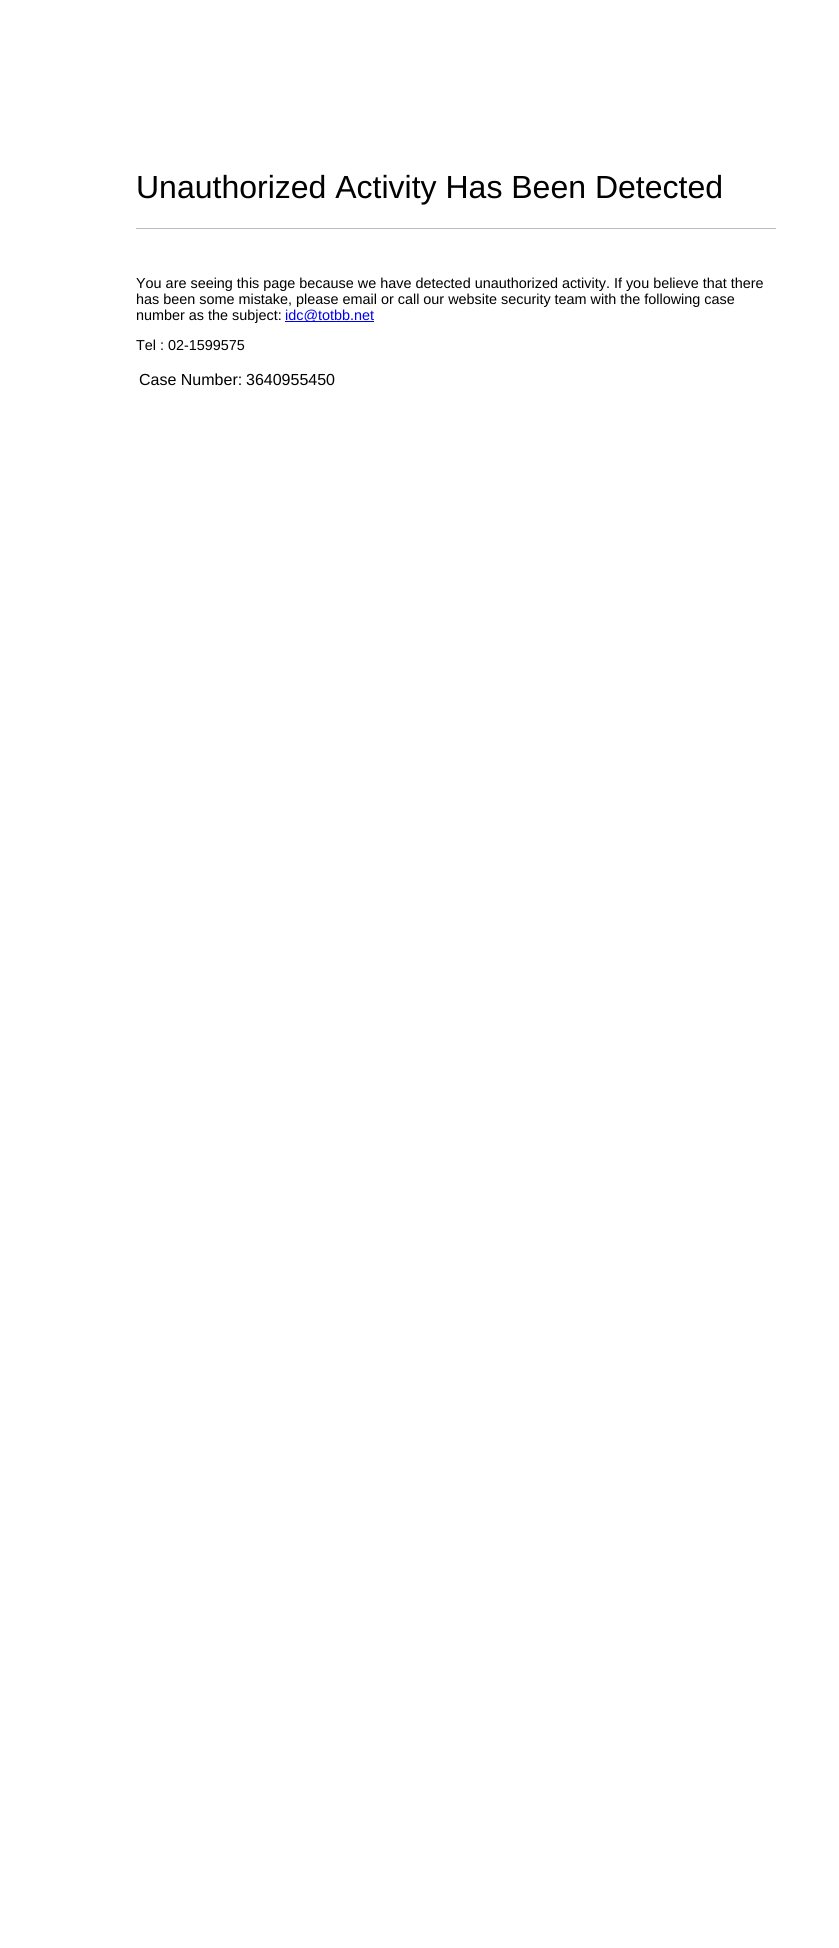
#include <cairo.h>
#include <math.h>
#include <stddef.h>


static void rgb(cairo_t *cr, int r, int g, int b)
{
	cairo_set_source_rgb(cr, r / 255.0, g / 255.0, b / 255.0);
}

static void face(cairo_t *cr, const char *family, double size, int italic, int bold)
{
	cairo_select_font_face(cr, family, italic ? CAIRO_FONT_SLANT_ITALIC : CAIRO_FONT_SLANT_NORMAL,
		bold ? CAIRO_FONT_WEIGHT_BOLD : CAIRO_FONT_WEIGHT_NORMAL);
	cairo_set_font_size(cr, size);
}

static void label(cairo_t *cr, double x, double y, const char *s)
{
	cairo_move_to(cr, x, y);
	cairo_show_text(cr, s);
}

static void rect(cairo_t *cr, double x, double y, double w, double h)
{
	cairo_rectangle(cr, x, y, w, h);
	cairo_fill(cr);
}

static void draw(cairo_t *cr) {
	rgb(cr, 255, 255, 255);
	cairo_paint(cr);
	face(cr, "Liberation Sans", 32, 0, 0);
	rgb(cr, 0, 0, 0);
	label(cr, 136, 198, "Unauthorized Activity Has Been Detected");
	rgb(cr, 182, 188, 198);
	rect(cr, 136, 228, 640, 1);
	face(cr, "Liberation Sans", 14.4, 0, 0);
	rgb(cr, 0, 0, 0);
	label(cr, 136, 288, "You are seeing this page because we have detected unauthorized activity. If you believe that there");
	label(cr, 136, 304, "has been some mistake, please email or call our website security team with the following case");
	label(cr, 136, 320, "number as the subject:");
	rgb(cr, 0, 0, 238);
	rect(cr, 285, 321, 89, 1);
	label(cr, 285, 320, "idc@totbb.net");
	rgb(cr, 0, 0, 0);
	label(cr, 136, 350, "Tel : 02-1599575");
	face(cr, "Liberation Sans", 16, 0, 0);
	label(cr, 139, 385, "Case Number:");
	label(cr, 246, 385, "3640955450");
}

int main(void) {
	cairo_surface_t *surface = cairo_image_surface_create(CAIRO_FORMAT_RGB24, 839, 1948);
	cairo_t *cr = cairo_create(surface);
	cairo_font_options_t *options = cairo_font_options_create();
	cairo_font_options_set_hint_metrics(options, CAIRO_HINT_METRICS_OFF);
	cairo_font_options_set_hint_style(options, CAIRO_HINT_STYLE_NONE);
	cairo_set_font_options(cr, options);
	cairo_set_miter_limit(cr, 4);
	draw(cr);
	cairo_surface_write_to_png(surface, "render.png");
	cairo_font_options_destroy(options);
	cairo_destroy(cr);
	cairo_surface_destroy(surface);
	return 0;
}
